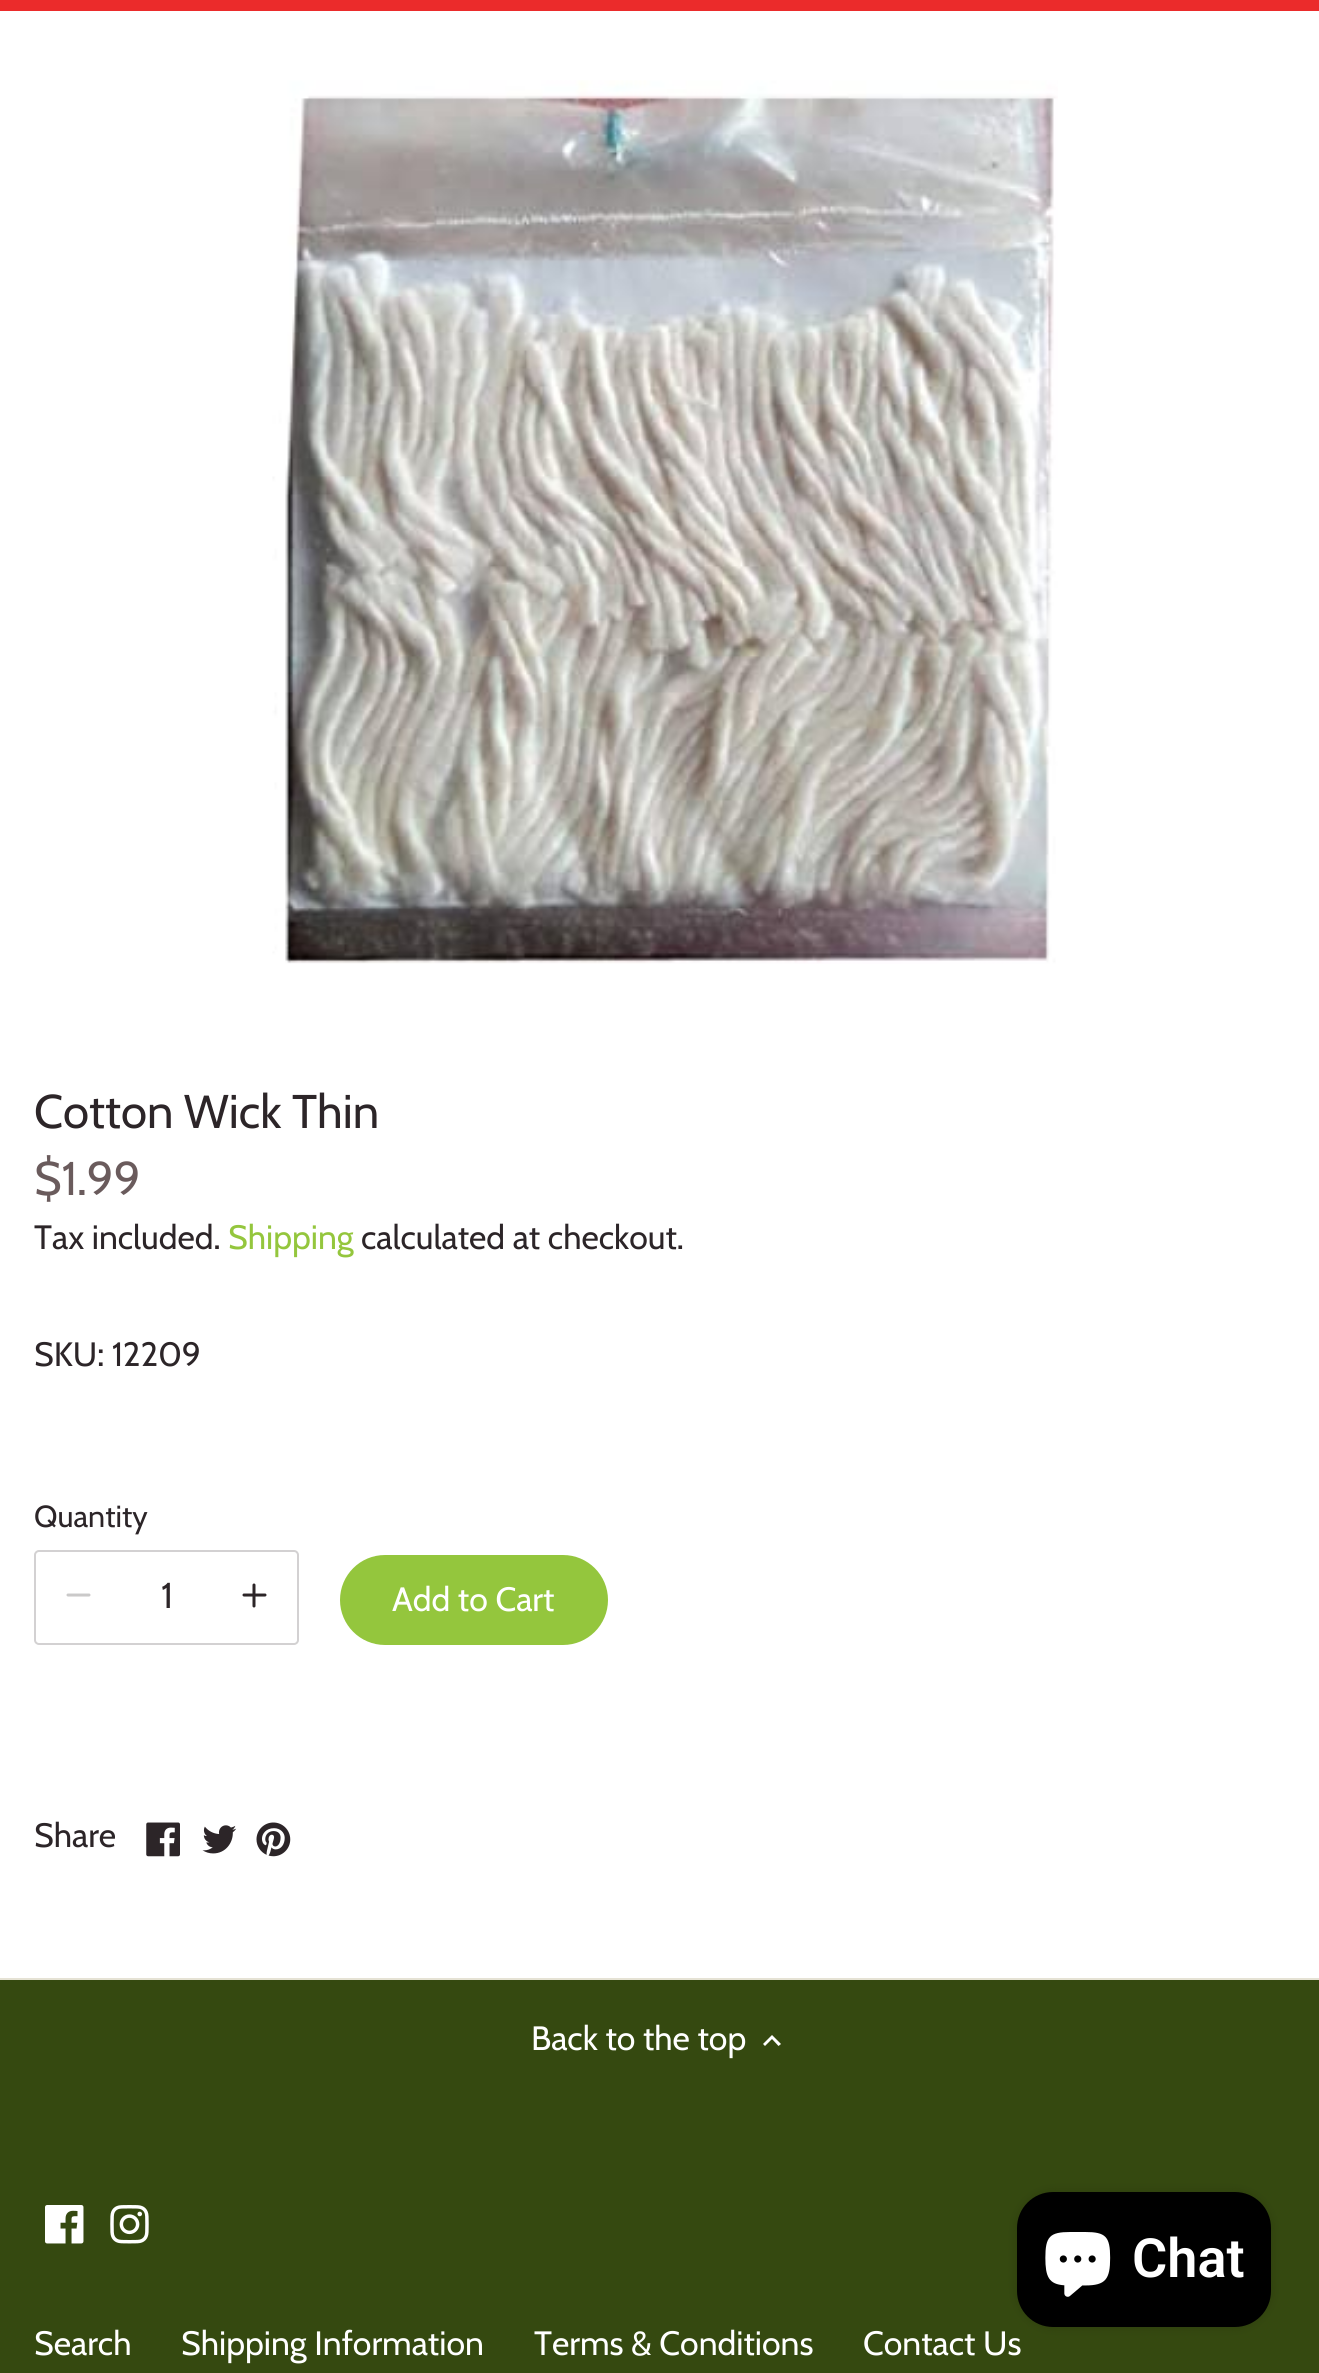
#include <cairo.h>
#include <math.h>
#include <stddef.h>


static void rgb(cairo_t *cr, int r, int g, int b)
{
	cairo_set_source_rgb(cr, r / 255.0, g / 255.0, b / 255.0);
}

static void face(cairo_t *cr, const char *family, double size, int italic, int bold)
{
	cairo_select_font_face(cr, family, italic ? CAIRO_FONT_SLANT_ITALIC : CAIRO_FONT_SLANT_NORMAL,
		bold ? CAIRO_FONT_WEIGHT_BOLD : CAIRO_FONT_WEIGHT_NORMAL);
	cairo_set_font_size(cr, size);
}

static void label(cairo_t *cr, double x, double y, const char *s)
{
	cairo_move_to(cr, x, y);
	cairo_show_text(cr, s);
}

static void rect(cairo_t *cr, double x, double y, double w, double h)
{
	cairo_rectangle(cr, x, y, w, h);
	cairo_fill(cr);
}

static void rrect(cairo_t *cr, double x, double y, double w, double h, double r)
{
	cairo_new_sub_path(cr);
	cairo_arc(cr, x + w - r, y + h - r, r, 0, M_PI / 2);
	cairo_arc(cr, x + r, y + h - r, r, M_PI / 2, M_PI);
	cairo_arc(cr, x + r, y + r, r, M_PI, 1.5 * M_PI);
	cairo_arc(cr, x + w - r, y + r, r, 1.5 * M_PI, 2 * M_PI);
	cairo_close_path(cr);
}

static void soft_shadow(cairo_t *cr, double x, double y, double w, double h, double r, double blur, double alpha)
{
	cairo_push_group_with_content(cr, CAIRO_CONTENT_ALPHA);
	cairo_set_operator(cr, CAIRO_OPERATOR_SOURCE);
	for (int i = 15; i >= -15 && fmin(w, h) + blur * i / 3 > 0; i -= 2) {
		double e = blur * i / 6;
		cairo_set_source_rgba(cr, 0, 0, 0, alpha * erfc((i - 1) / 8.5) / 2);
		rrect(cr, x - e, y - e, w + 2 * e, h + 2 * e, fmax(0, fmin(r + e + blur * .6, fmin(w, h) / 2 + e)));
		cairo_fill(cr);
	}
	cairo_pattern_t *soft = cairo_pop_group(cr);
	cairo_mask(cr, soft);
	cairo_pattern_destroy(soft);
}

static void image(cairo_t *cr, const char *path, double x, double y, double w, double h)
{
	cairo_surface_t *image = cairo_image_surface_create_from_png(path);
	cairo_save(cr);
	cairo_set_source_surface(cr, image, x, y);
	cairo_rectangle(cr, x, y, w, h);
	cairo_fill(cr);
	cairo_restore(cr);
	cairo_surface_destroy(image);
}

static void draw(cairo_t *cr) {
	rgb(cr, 53, 73, 16);
	cairo_paint(cr);
	rgb(cr, 255, 255, 255);
	rect(cr, 0, 11, 1319, 1967);
	rgb(cr, 235, 43, 43);
	rect(cr, 0, 0, 1319, 11);
	image(cr, "image0.png", 272, 80, 786, 884);
	face(cr, "Cabin", 47.25, 0, 0);
	rgb(cr, 44, 37, 40);
	label(cr, 34, 1128, "Cotton Wick Thin");
	rgb(cr, 106, 91, 92);
	label(cr, 34, 1195, "$1.99");
	face(cr, "Cabin", 33.75, 0, 0);
	rgb(cr, 44, 37, 40);
	label(cr, 34, 1249, "Tax included.");
	rgb(cr, 148, 198, 61);
	label(cr, 228, 1249, "Shipping");
	rgb(cr, 44, 37, 40);
	label(cr, 361, 1249, "calculated at checkout.");
	label(cr, 34, 1366, "SKU: 12209");
	face(cr, "Cabin", 30.5, 0, 0);
	label(cr, 34, 1527, "Quantity");
	rrect(cr, 35, 1551, 263, 93, 4);
	rgb(cr, 211, 209, 210);
	cairo_stroke(cr);
	cairo_new_path(cr);
	cairo_move_to(cr, 68, 1595);
	cairo_line_to(cr, 89, 1595);
	rgb(cr, 202, 201, 201);
	cairo_set_line_width(cr, 3);
	cairo_set_line_cap(cr, CAIRO_LINE_CAP_ROUND);
	cairo_set_line_join(cr, CAIRO_LINE_JOIN_ROUND);
	cairo_stroke(cr);
	face(cr, "Cabin", 36, 0, 0);
	rgb(cr, 44, 37, 40);
	label(cr, 161, 1608, "1");
	cairo_new_path(cr);
	cairo_move_to(cr, 254, 1585);
	cairo_line_to(cr, 254, 1606);
	cairo_move_to(cr, 244, 1595);
	cairo_line_to(cr, 265, 1595);
	cairo_stroke(cr);
	rgb(cr, 148, 198, 61);
	rrect(cr, 342.5, 1557.5, 263, 85, 42.5);
	cairo_fill_preserve(cr);
	cairo_set_line_width(cr, 5);
	cairo_set_line_cap(cr, CAIRO_LINE_CAP_BUTT);
	cairo_set_line_join(cr, CAIRO_LINE_JOIN_MITER);
	cairo_stroke(cr);
	face(cr, "Cabin", 33.75, 0, 0);
	rgb(cr, 255, 255, 255);
	label(cr, 392, 1611, "Add to Cart");
	rgb(cr, 44, 37, 40);
	label(cr, 34, 1847, "Share");
	image(cr, "image1.png", 146, 1822, 34, 35);
	image(cr, "image2.png", 202, 1825, 35, 29);
	image(cr, "image3.png", 256, 1822, 35, 35);
	rgb(cr, 229, 226, 212);
	rect(cr, 0, 1978, 1319, 2);
	rgb(cr, 255, 255, 255);
	label(cr, 531, 2050, "Back to the top");
	cairo_new_path(cr);
	cairo_move_to(cr, 765, 2046);
	cairo_line_to(cr, 772, 2039);
	cairo_line_to(cr, 778.5, 2046);
	cairo_line_to(cr, 781, 2044);
	cairo_line_to(cr, 772, 2035);
	cairo_line_to(cr, 763, 2044);
	cairo_close_path(cr);
	cairo_fill(cr);
	image(cr, "image4.png", 45, 2205, 39, 39);
	image(cr, "image5.png", 110, 2205, 39, 39);
	label(cr, 34, 2355, "Search");
	label(cr, 181, 2355, "Shipping Information");
	label(cr, 534, 2355, "Terms & Conditions");
	label(cr, 863, 2355, "Contact Us");
	rgb(cr, 0, 0, 0);
	soft_shadow(cr, 1017, 2192, 254, 135, 36, 5.5, 0.15);
	rgb(cr, 0, 0, 0);
	rrect(cr, 1017, 2192, 254, 135, 36);
	cairo_fill(cr);
	image(cr, "image6.png", 1045, 2232, 66, 65);
	face(cr, "Roboto SemiBold", 54, 0, 0);
	rgb(cr, 255, 255, 255);
	label(cr, 1132, 2277, "Chat");
}

int main(void) {
	cairo_surface_t *surface = cairo_image_surface_create(CAIRO_FORMAT_RGB24, 1319, 2373);
	cairo_t *cr = cairo_create(surface);
	cairo_font_options_t *options = cairo_font_options_create();
	cairo_font_options_set_hint_metrics(options, CAIRO_HINT_METRICS_OFF);
	cairo_font_options_set_hint_style(options, CAIRO_HINT_STYLE_NONE);
	cairo_set_font_options(cr, options);
	cairo_set_miter_limit(cr, 4);
	draw(cr);
	cairo_surface_write_to_png(surface, "render.png");
	cairo_font_options_destroy(options);
	cairo_destroy(cr);
	cairo_surface_destroy(surface);
	return 0;
}
